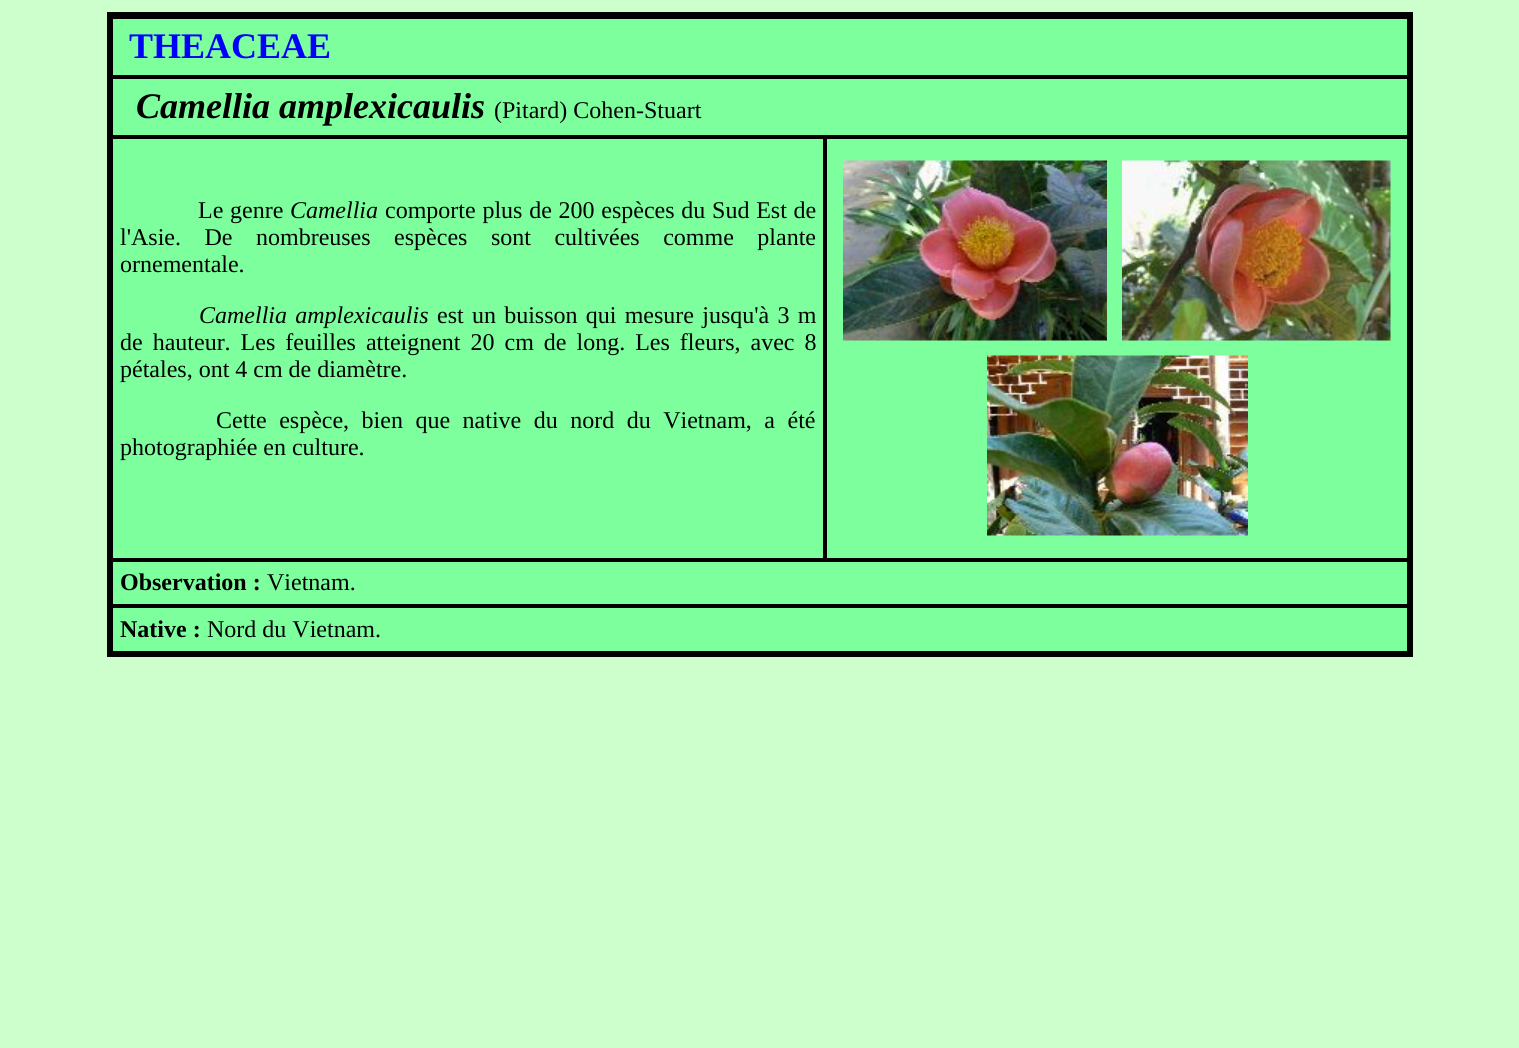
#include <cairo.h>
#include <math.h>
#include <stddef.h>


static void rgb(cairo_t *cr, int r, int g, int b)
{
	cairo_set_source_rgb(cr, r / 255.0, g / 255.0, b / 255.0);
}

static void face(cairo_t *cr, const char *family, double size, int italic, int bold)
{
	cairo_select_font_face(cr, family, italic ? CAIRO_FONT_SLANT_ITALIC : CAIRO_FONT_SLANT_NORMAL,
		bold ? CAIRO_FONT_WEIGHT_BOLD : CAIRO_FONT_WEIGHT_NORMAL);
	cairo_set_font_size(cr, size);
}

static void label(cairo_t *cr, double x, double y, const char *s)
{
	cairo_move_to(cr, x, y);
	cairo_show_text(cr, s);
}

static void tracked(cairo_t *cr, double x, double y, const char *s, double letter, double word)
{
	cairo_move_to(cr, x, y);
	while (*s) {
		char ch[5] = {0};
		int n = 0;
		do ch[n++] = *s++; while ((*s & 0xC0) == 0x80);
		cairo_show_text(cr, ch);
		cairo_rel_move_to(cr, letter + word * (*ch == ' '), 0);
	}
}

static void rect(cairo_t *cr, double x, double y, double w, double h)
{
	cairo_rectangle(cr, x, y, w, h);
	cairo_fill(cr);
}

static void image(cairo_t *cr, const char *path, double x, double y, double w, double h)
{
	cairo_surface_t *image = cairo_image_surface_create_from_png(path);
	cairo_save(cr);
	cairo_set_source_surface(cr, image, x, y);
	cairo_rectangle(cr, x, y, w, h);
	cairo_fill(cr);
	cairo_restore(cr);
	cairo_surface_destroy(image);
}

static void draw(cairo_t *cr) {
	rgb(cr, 204, 255, 204);
	cairo_paint(cr);
	rgb(cr, 125, 255, 158);
	rect(cr, 113, 19, 1294, 632);
	cairo_rectangle(cr, 109.5, 14.5, 1301, 640);
	rgb(cr, 0, 0, 0);
	cairo_set_line_width(cr, 5);
	cairo_stroke(cr);
	cairo_rectangle(cr, 112, 18, 1296, 58);
	cairo_set_line_width(cr, 2);
	cairo_stroke(cr);
	face(cr, "Liberation Serif", 36, 0, 1);
	rgb(cr, 0, 0, 255);
	label(cr, 129, 58, "THEACEAE");
	cairo_rectangle(cr, 112, 78, 1296, 58);
	rgb(cr, 0, 0, 0);
	cairo_stroke(cr);
	face(cr, "Liberation Serif", 36, 1, 1);
	label(cr, 136, 118, "Camellia amplexicaulis");
	face(cr, "Liberation Serif", 24, 0, 0);
	label(cr, 494, 118, "(Pitard) Cohen-Stuart");
	cairo_rectangle(cr, 112, 138, 712, 421);
	cairo_stroke(cr);
	tracked(cr, 198, 218, "Le genre", 0, 0.75);
	face(cr, "Liberation Serif", 24, 1, 0);
	label(cr, 290, 218, "Camellia");
	face(cr, "Liberation Serif", 24, 0, 0);
	tracked(cr, 385, 218, "comporte plus de 200 espèces du Sud Est de", 0, 0.75);
	tracked(cr, 120, 245, "l'Asie. De nombreuses espèces sont cultivées comme plante", 0, 17.5);
	label(cr, 120, 272, "ornementale.");
	face(cr, "Liberation Serif", 24, 1, 0);
	tracked(cr, 199, 323, "Camellia amplexicaulis", 0, 2.25);
	face(cr, "Liberation Serif", 24, 0, 0);
	tracked(cr, 437, 323, "est un buisson qui mesure jusqu'à 3 m", 0, 2.25);
	tracked(cr, 120, 350, "de hauteur. Les feuilles atteignent 20 cm de long. Les fleurs, avec 8", 0, 4);
	label(cr, 120, 377, "pétales, ont 4 cm de diamètre.");
	tracked(cr, 216, 428, "Cette espèce, bien que native du nord du Vietnam, a été", 0, 6.5);
	label(cr, 120, 455, "photographiée en culture.");
	cairo_rectangle(cr, 826, 138, 582, 421);
	cairo_stroke(cr);
	image(cr, "image0.png", 843, 160, 264, 181);
	image(cr, "image1.png", 1122, 160, 269, 181);
	image(cr, "image2.png", 987, 355, 261, 181);
	cairo_rectangle(cr, 112, 561, 1296, 44);
	cairo_stroke(cr);
	face(cr, "Liberation Serif", 24, 0, 1);
	label(cr, 120, 590, "Observation :");
	face(cr, "Liberation Serif", 24, 0, 0);
	label(cr, 267, 590, "Vietnam.");
	cairo_rectangle(cr, 112, 607, 1296, 45);
	cairo_stroke(cr);
	face(cr, "Liberation Serif", 24, 0, 1);
	label(cr, 120, 637, "Native :");
	face(cr, "Liberation Serif", 24, 0, 0);
	label(cr, 207, 637, "Nord du Vietnam.");
}

int main(void) {
	cairo_surface_t *surface = cairo_image_surface_create(CAIRO_FORMAT_RGB24, 1519, 1048);
	cairo_t *cr = cairo_create(surface);
	cairo_font_options_t *options = cairo_font_options_create();
	cairo_font_options_set_hint_metrics(options, CAIRO_HINT_METRICS_OFF);
	cairo_font_options_set_hint_style(options, CAIRO_HINT_STYLE_NONE);
	cairo_set_font_options(cr, options);
	cairo_set_miter_limit(cr, 4);
	draw(cr);
	cairo_surface_write_to_png(surface, "render.png");
	cairo_font_options_destroy(options);
	cairo_destroy(cr);
	cairo_surface_destroy(surface);
	return 0;
}
